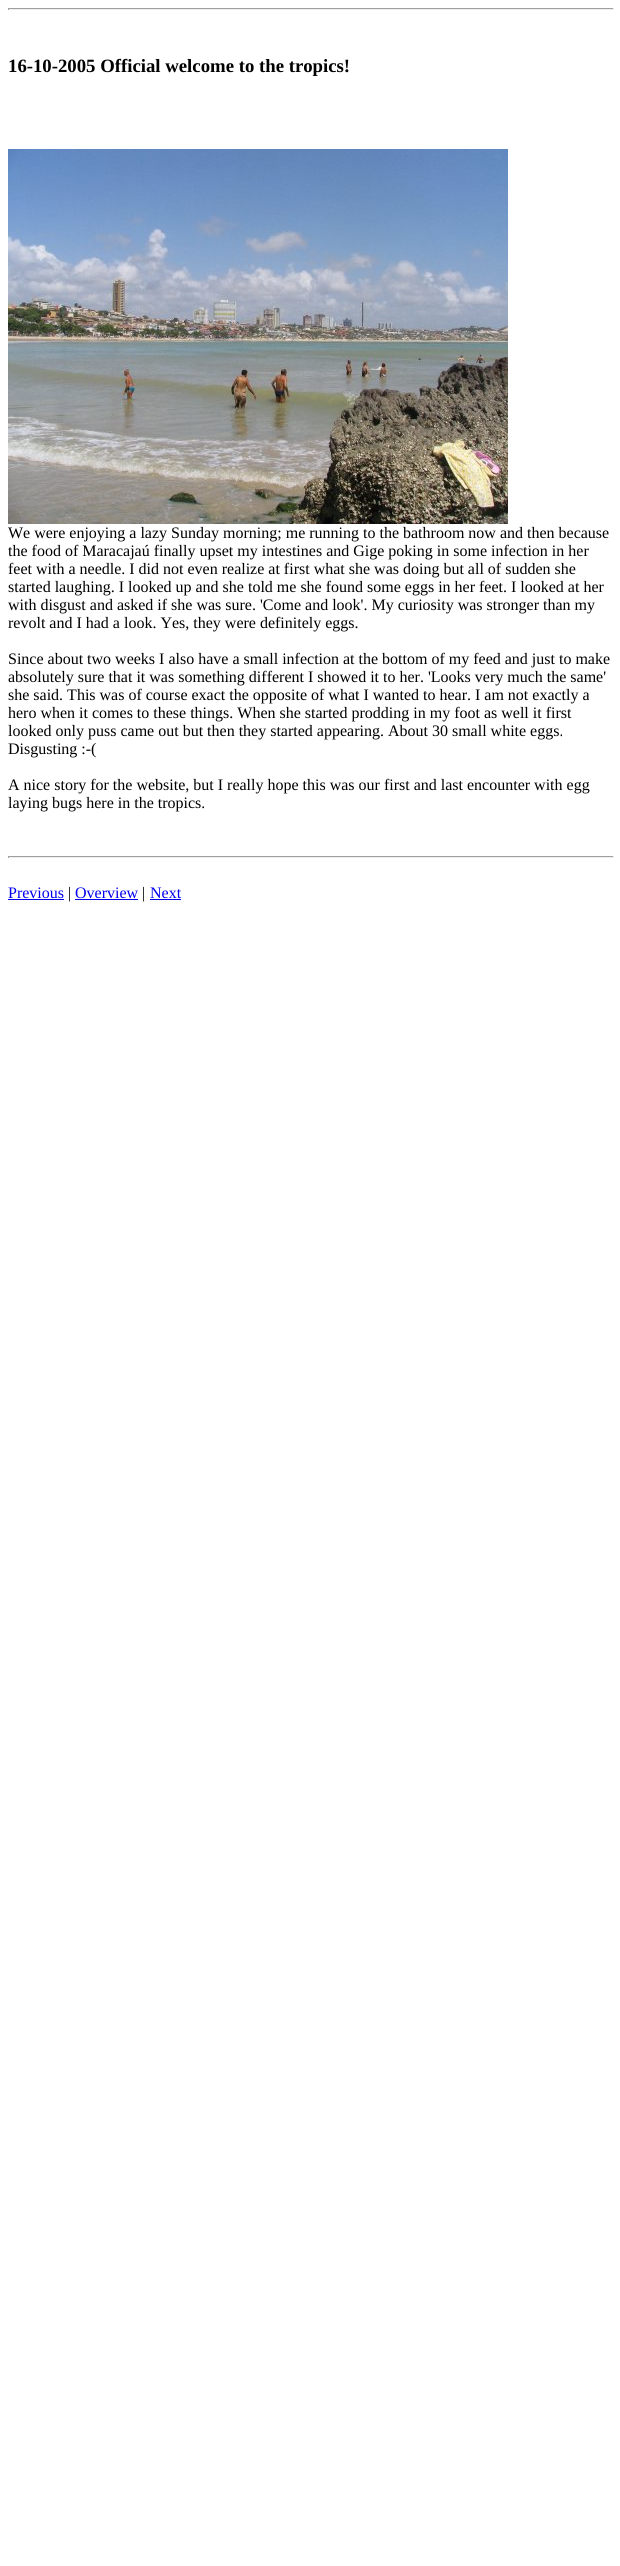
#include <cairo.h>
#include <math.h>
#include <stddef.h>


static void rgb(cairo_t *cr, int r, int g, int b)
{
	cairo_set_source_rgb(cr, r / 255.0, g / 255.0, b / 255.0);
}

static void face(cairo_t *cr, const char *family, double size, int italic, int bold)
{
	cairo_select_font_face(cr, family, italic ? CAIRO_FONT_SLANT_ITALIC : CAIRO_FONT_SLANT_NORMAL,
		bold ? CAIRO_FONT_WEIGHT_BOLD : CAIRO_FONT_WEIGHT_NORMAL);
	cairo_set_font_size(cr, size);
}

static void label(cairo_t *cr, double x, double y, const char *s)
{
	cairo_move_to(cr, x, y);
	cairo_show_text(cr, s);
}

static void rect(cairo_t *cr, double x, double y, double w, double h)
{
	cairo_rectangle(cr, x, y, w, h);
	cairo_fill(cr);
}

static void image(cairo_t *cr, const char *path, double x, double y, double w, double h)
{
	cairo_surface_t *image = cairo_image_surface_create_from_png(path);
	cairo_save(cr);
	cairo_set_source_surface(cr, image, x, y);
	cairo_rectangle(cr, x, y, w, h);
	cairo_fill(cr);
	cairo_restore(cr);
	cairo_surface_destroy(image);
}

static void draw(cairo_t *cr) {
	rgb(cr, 255, 255, 255);
	cairo_paint(cr);
	rgb(cr, 159, 159, 159);
	rect(cr, 8, 8, 606, 1);
	rgb(cr, 238, 238, 238);
	rect(cr, 613, 8, 1, 2);
	rect(cr, 8, 9, 606, 1);
	rgb(cr, 159, 159, 159);
	rect(cr, 8, 8, 1, 2);
	face(cr, "Liberation Serif", 18.75, 0, 1);
	rgb(cr, 0, 0, 0);
	label(cr, 8, 72, "16-10-2005 Official welcome to the tropics!");
	image(cr, "image0.png", 8, 149, 500, 375);
	face(cr, "Liberation Serif", 16, 0, 0);
	label(cr, 8, 538, "We were enjoying a lazy Sunday morning; me running to the bathroom now and then because");
	label(cr, 8, 556, "the food of Maracajaú finally upset my intestines and Gige poking in some infection in her");
	label(cr, 8, 574, "feet with a needle. I did not even realize at first what she was doing but all of sudden she");
	label(cr, 8, 592, "started laughing. I looked up and she told me she found some eggs in her feet. I looked at her");
	label(cr, 8, 610, "with disgust and asked if she was sure. 'Come and look'. My curiosity was stronger than my");
	label(cr, 8, 628, "revolt and I had a look. Yes, they were definitely eggs.");
	label(cr, 8, 664, "Since about two weeks I also have a small infection at the bottom of my feed and just to make");
	label(cr, 8, 682, "absolutely sure that it was something different I showed it to her. 'Looks very much the same'");
	label(cr, 8, 700, "she said. This was of course exact the opposite of what I wanted to hear. I am not exactly a");
	label(cr, 8, 718, "hero when it comes to these things. When she started prodding in my foot as well it first");
	label(cr, 8, 736, "looked only puss came out but then they started appearing. About 30 small white eggs.");
	label(cr, 8, 754, "Disgusting :-(");
	label(cr, 8, 790, "A nice story for the website, but I really hope this was our first and last encounter with egg");
	label(cr, 8, 808, "laying bugs here in the tropics.");
	rgb(cr, 159, 159, 159);
	rect(cr, 8, 856, 606, 1);
	rgb(cr, 238, 238, 238);
	rect(cr, 613, 856, 1, 2);
	rect(cr, 8, 857, 606, 1);
	rgb(cr, 159, 159, 159);
	rect(cr, 8, 856, 1, 2);
	rgb(cr, 0, 0, 238);
	label(cr, 8, 898, "Previous");
	rect(cr, 8, 899, 56, 1);
	rgb(cr, 0, 0, 0);
	label(cr, 68, 898, "|");
	rgb(cr, 0, 0, 238);
	label(cr, 75, 898, "Overview");
	rect(cr, 75, 899, 63, 1);
	rgb(cr, 0, 0, 0);
	label(cr, 142, 898, "|");
	rgb(cr, 0, 0, 238);
	label(cr, 150, 898, "Next");
	rect(cr, 150, 899, 31, 1);
}

int main(void) {
	cairo_surface_t *surface = cairo_image_surface_create(CAIRO_FORMAT_RGB24, 620, 2566);
	cairo_t *cr = cairo_create(surface);
	cairo_font_options_t *options = cairo_font_options_create();
	cairo_font_options_set_hint_metrics(options, CAIRO_HINT_METRICS_OFF);
	cairo_font_options_set_hint_style(options, CAIRO_HINT_STYLE_NONE);
	cairo_set_font_options(cr, options);
	cairo_set_miter_limit(cr, 4);
	draw(cr);
	cairo_surface_write_to_png(surface, "render.png");
	cairo_font_options_destroy(options);
	cairo_destroy(cr);
	cairo_surface_destroy(surface);
	return 0;
}
